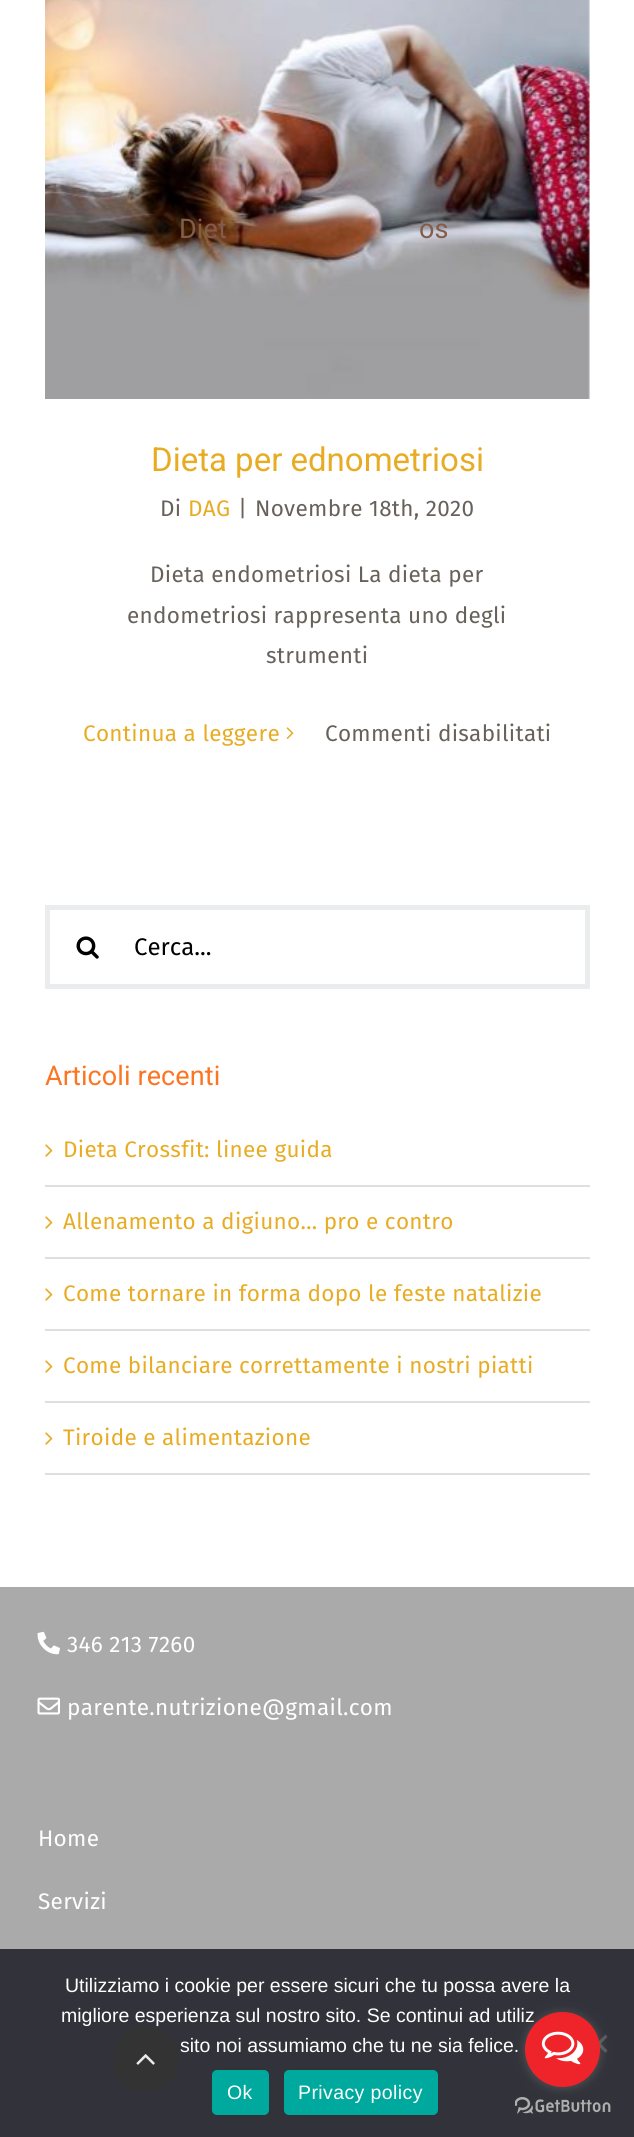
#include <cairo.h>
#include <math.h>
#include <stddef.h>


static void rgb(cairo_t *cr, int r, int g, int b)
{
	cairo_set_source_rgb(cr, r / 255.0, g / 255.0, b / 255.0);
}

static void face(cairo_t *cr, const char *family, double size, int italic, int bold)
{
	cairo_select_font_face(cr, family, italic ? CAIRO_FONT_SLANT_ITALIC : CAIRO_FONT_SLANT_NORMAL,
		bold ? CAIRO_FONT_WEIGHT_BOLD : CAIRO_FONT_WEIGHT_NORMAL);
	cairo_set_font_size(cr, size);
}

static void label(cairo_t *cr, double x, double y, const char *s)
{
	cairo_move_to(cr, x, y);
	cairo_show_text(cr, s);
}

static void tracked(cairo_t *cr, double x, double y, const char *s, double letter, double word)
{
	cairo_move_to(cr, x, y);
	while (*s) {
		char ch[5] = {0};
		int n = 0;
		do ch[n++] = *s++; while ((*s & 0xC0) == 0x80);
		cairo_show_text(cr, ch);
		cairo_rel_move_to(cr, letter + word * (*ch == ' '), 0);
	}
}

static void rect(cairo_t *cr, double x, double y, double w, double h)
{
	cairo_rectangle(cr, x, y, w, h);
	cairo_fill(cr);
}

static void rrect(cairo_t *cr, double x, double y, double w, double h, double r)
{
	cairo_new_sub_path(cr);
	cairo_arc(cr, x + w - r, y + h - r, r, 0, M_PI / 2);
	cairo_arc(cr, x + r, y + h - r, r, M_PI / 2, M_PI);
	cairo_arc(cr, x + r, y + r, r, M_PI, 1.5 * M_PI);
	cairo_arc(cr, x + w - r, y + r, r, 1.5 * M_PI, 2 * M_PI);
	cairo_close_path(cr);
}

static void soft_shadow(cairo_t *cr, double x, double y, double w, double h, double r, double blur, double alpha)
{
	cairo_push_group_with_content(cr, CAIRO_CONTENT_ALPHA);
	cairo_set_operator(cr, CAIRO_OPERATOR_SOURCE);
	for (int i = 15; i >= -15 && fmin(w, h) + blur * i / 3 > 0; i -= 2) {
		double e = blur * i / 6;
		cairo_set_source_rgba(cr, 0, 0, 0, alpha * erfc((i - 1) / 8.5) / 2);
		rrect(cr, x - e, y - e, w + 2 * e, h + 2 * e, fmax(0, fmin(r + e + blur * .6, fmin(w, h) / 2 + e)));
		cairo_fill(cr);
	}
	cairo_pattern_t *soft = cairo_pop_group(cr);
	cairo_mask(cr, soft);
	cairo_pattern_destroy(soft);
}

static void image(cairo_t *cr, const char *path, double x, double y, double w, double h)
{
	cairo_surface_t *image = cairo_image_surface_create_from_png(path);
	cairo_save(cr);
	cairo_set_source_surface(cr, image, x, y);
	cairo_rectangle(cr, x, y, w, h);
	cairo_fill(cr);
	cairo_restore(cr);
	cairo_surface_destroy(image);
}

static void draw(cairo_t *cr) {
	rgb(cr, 255, 255, 255);
	cairo_paint(cr);
	image(cr, "image0.png", 45, 0, 545, 399);
	face(cr, "Roboto", 27, 0, 0);
	rgb(cr, 131, 92, 74);
	tracked(cr, 179, 238, "Diet", 0.1, 0);
	tracked(cr, 419, 238, "os", 0.1, 0);
	face(cr, "Roboto", 33, 0, 0);
	rgb(cr, 232, 172, 36);
	label(cr, 151, 471, "Dieta per ednometriosi");
	face(cr, "Fira Sans", 22.5, 0, 0);
	rgb(cr, 103, 97, 90);
	tracked(cr, 160, 516, "Di", 0.3, 0);
	rgb(cr, 232, 172, 36);
	tracked(cr, 188, 516, "DAG", 0.3, 0);
	rgb(cr, 103, 97, 90);
	tracked(cr, 238, 516, "|", 0.3, 0);
	tracked(cr, 255, 516, "Novembre 18th, 2020", 0.3, 0);
	tracked(cr, 150, 582, "Dieta endometriosi La dieta per", 0.3, 0);
	tracked(cr, 127, 623, "endometriosi rappresenta uno degli", 0.3, 0);
	tracked(cr, 266, 663, "strumenti", 0.3, 0);
	rgb(cr, 232, 172, 36);
	tracked(cr, 83, 741, "Continua a leggere", 0.3, 0);
	image(cr, "image1.png", 286, 727, 8, 12);
	rgb(cr, 103, 97, 90);
	tracked(cr, 325, 741, "Commenti disabilitati", 0.3, 0);
	cairo_rectangle(cr, 47.5, 907.5, 540, 79);
	rgb(cr, 235, 236, 237);
	cairo_set_line_width(cr, 5);
	cairo_stroke(cr);
	image(cr, "image2.png", 76, 936, 23, 23);
	face(cr, "Fira Sans", 24, 0, 0);
	rgb(cr, 0, 0, 0);
	label(cr, 134, 955, "Cerca...");
	face(cr, "Roboto", 27, 0, 0);
	rgb(cr, 252, 117, 35);
	tracked(cr, 45, 1085, "Articoli recenti", 0.1, 0);
	rgb(cr, 224, 222, 222);
	rect(cr, 45, 1185, 545, 2);
	image(cr, "image3.png", 45, 1144, 8, 13);
	face(cr, "Fira Sans", 22.5, 0, 0);
	rgb(cr, 232, 172, 36);
	tracked(cr, 63, 1157, "Dieta Crossfit: linee guida", 0.3, 0);
	rgb(cr, 224, 222, 222);
	rect(cr, 45, 1257, 545, 2);
	image(cr, "image3.png", 45, 1216, 8, 13);
	rgb(cr, 232, 172, 36);
	tracked(cr, 63, 1229, "Allenamento a digiuno… pro e contro", 0.3, 0);
	rgb(cr, 224, 222, 222);
	rect(cr, 45, 1329, 545, 2);
	image(cr, "image3.png", 45, 1288, 8, 13);
	rgb(cr, 232, 172, 36);
	tracked(cr, 63, 1301, "Come tornare in forma dopo le feste natalizie", 0.3, 0);
	rgb(cr, 224, 222, 222);
	rect(cr, 45, 1401, 545, 2);
	image(cr, "image3.png", 45, 1360, 8, 13);
	rgb(cr, 232, 172, 36);
	tracked(cr, 63, 1373, "Come bilanciare correttamente i nostri piatti", 0.3, 0);
	rgb(cr, 224, 222, 222);
	rect(cr, 45, 1473, 545, 2);
	image(cr, "image3.png", 45, 1432, 8, 13);
	rgb(cr, 232, 172, 36);
	tracked(cr, 63, 1445, "Tiroide e alimentazione", 0.3, 0);
	rgb(cr, 170, 170, 170);
	rect(cr, 0, 1587, 634, 362);
	image(cr, "image4.png", 37, 1631, 23, 24);
	rgb(cr, 255, 255, 255);
	tracked(cr, 67, 1652, "346 213 7260", 0.3, 0);
	image(cr, "image5.png", 37, 1697, 23, 18);
	tracked(cr, 67, 1715, "parente.nutrizione@gmail.com", 0.3, 0);
	tracked(cr, 38, 1846, "Home", 0.3, 0);
	tracked(cr, 38, 1909, "Servizi", 0.3, 0);
	rgb(cr, 50, 50, 58);
	rect(cr, 0, 1949, 634, 188);
	face(cr, "Liberation Sans", 19.5, 0, 0);
	rgb(cr, 255, 255, 255);
	label(cr, 65, 1992, "Utilizziamo i cookie per essere sicuri che tu possa avere la");
	label(cr, 61, 2022, "migliore esperienza sul nostro sito. Se continui ad utiliz");
	label(cr, 180, 2052, "sito noi assumiamo che tu ne sia felice.");
	rgb(cr, 89, 89, 93);
	cairo_new_path(cr);
	cairo_move_to(cr, 605.5, 2034.5);
	cairo_line_to(cr, 607.5, 2037);
	cairo_line_to(cr, 591.5, 2053);
	cairo_line_to(cr, 589.5, 2050.5);
	cairo_close_path(cr);
	cairo_fill(cr);
	cairo_new_path(cr);
	cairo_move_to(cr, 589.5, 2037);
	cairo_line_to(cr, 591.5, 2034.5);
	cairo_line_to(cr, 607.5, 2050.5);
	cairo_line_to(cr, 605.5, 2053);
	cairo_close_path(cr);
	cairo_fill(cr);
	rgb(cr, 0, 169, 157);
	rrect(cr, 212, 2070, 57, 45, 5);
	cairo_fill(cr);
	rgb(cr, 255, 255, 255);
	tracked(cr, 227, 2099, "Ok", 0.4, 0);
	rgb(cr, 0, 169, 157);
	rrect(cr, 284, 2070, 154, 45, 5);
	cairo_fill(cr);
	rgb(cr, 255, 255, 255);
	tracked(cr, 298, 2099, "Privacy policy", 0.4, 0);
	cairo_set_source_rgba(cr, 0.2, 0.2, 0.2, 0.9);
	cairo_new_path(cr);
	cairo_arc(cr, 146, 2060, 33, 0, 2 * M_PI);
	cairo_fill(cr);
	image(cr, "image6.png", 136, 2054, 19, 11);
	image(cr, "image8.png", 515, 2097, 96, 17);
	rgb(cr, 136, 136, 136);
	soft_shadow(cr, 525, 2013, 75, 75, 37.5, 5, 0.4);
	rgb(cr, 239, 36, 43);
	cairo_arc(cr, 562.5, 2049.5, 37.5, 0, 2 * M_PI);
	cairo_fill(cr);
	image(cr, "image7.png", 541, 2031, 43, 34);
}

int main(void) {
	cairo_surface_t *surface = cairo_image_surface_create(CAIRO_FORMAT_RGB24, 634, 2137);
	cairo_t *cr = cairo_create(surface);
	cairo_font_options_t *options = cairo_font_options_create();
	cairo_font_options_set_hint_metrics(options, CAIRO_HINT_METRICS_OFF);
	cairo_font_options_set_hint_style(options, CAIRO_HINT_STYLE_NONE);
	cairo_set_font_options(cr, options);
	cairo_set_miter_limit(cr, 4);
	draw(cr);
	cairo_surface_write_to_png(surface, "render.png");
	cairo_font_options_destroy(options);
	cairo_destroy(cr);
	cairo_surface_destroy(surface);
	return 0;
}
